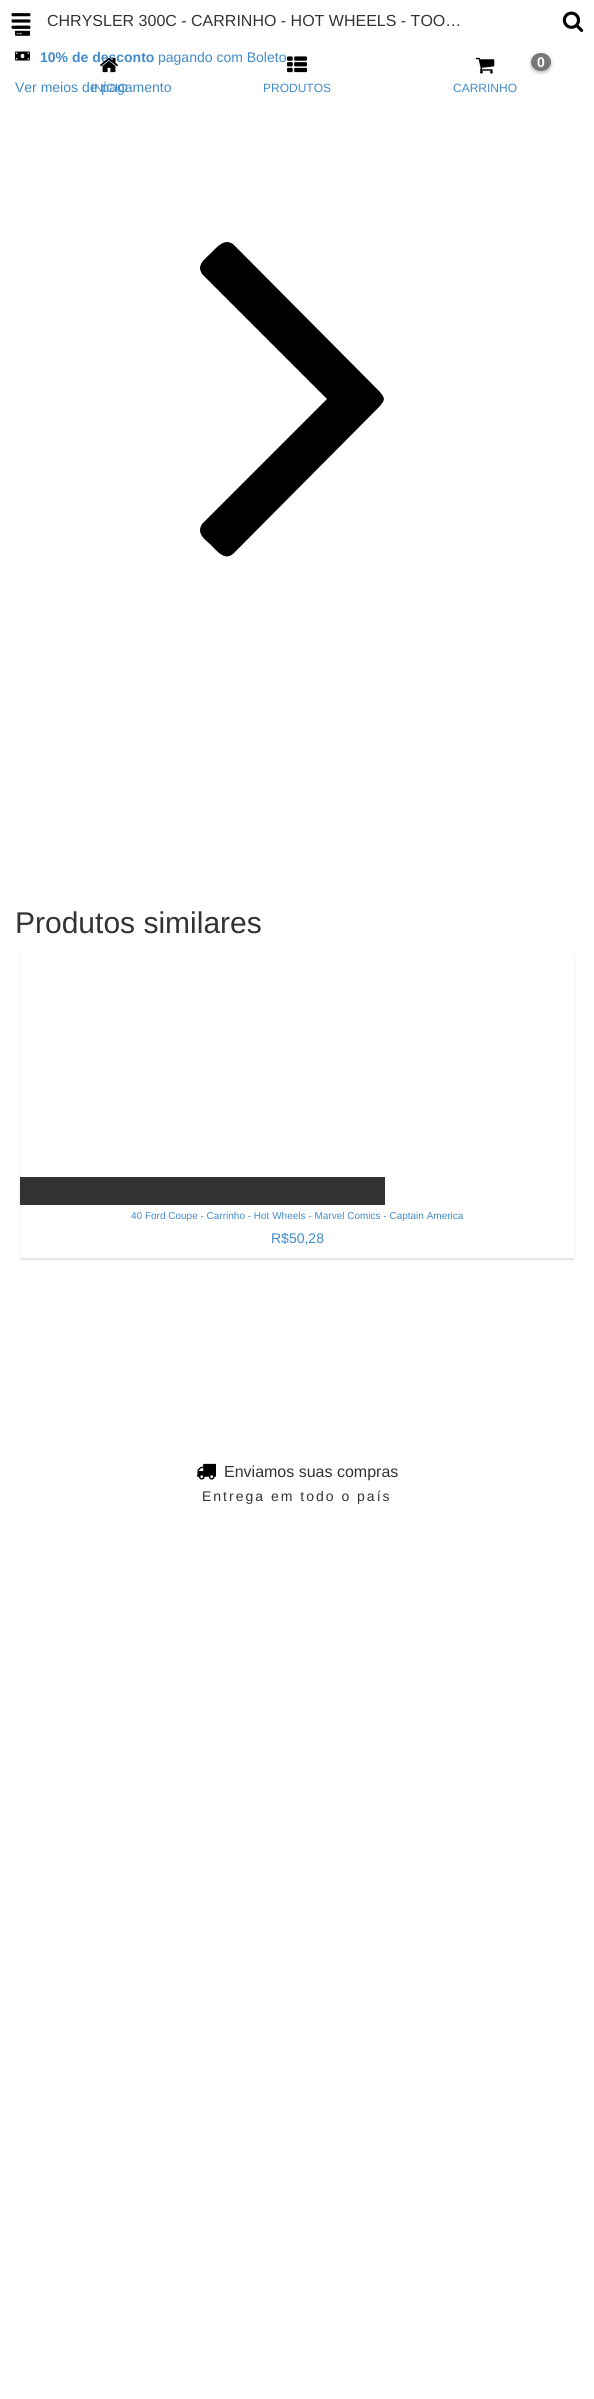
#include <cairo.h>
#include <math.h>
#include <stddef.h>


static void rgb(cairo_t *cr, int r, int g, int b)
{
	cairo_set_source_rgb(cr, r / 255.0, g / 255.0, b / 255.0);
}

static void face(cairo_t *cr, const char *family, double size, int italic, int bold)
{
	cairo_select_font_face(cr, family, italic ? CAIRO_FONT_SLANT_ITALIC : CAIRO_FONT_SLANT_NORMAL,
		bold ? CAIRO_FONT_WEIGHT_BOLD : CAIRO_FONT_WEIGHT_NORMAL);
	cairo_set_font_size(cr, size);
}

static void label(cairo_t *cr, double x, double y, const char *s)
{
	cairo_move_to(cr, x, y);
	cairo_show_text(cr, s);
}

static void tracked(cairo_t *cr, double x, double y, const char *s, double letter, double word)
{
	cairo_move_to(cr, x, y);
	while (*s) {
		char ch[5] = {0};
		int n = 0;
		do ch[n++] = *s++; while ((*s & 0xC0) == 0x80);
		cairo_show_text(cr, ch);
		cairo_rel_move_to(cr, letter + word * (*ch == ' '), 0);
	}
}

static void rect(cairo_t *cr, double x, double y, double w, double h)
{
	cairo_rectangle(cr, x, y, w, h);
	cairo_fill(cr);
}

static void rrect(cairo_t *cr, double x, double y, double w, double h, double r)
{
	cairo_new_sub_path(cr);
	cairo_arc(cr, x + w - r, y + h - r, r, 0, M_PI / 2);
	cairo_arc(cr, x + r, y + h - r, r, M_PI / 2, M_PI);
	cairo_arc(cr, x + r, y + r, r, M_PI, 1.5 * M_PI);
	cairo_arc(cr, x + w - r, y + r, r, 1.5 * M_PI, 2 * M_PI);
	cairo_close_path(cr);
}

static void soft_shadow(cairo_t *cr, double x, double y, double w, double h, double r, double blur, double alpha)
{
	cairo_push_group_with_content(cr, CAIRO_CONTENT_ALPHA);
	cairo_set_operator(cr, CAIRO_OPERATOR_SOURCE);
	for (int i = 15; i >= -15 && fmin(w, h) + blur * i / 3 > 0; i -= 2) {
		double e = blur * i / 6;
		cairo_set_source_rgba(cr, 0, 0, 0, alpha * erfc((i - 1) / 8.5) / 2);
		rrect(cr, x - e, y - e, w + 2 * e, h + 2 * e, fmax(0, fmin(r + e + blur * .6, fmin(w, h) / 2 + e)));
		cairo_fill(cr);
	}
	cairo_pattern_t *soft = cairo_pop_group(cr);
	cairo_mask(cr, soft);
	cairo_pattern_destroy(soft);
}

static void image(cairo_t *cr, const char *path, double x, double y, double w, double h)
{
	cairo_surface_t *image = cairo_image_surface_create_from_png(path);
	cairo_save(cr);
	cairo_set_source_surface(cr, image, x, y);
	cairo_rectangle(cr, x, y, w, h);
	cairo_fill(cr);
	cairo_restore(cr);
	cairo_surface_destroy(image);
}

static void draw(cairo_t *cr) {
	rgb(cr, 255, 255, 255);
	cairo_paint(cr);
	image(cr, "image5.png", 15, 25, 15, 11);
	image(cr, "image0.png", 11, 13, 20, 16);
	face(cr, "Liberation Sans", 16, 0, 0);
	rgb(cr, 51, 51, 51);
	label(cr, 47, 26, "CHRYSLER 300C - CARRINHO - HOT WHEELS - TOO…");
	image(cr, "image1.png", 562, 11, 22, 21);
	face(cr, "Liberation Sans", 14, 0, 1);
	rgb(cr, 66, 139, 202);
	label(cr, 40, 62, "10% de desconto");
	image(cr, "image2.png", 100, 57, 18, 16);
	face(cr, "Liberation Sans", 14, 0, 0);
	label(cr, 15, 92, "Ver meios de pagamento");
	face(cr, "Liberation Sans", 12, 0, 0);
	label(cr, 91, 92, "INÍCIO");
	image(cr, "image3.png", 287, 56, 20, 17);
	label(cr, 263, 92, "PRODUTOS");
	image(cr, "image4.png", 475, 57, 20, 17);
	rgb(cr, 0, 0, 0);
	soft_shadow(cr, 531, 55, 20, 18, 9, 1.5, 0.2);
	soft_shadow(cr, 531, 53, 20, 18, 9, 2.5, 0.1);
	rgb(cr, 119, 119, 119);
	cairo_new_path(cr);
	cairo_move_to(cr, 541, 53);
	cairo_curve_to(cr, 546.5, 53, 551, 57, 551, 62);
	cairo_curve_to(cr, 551, 67, 546.5, 71, 541, 71);
	cairo_curve_to(cr, 535.5, 71, 531, 67, 531, 62);
	cairo_curve_to(cr, 531, 57, 535.5, 53, 541, 53);
	cairo_close_path(cr);
	cairo_fill(cr);
	face(cr, "Liberation Sans", 14, 0, 1);
	rgb(cr, 255, 255, 255);
	label(cr, 537, 67, "0");
	face(cr, "Liberation Sans", 12, 0, 0);
	rgb(cr, 66, 139, 202);
	label(cr, 453, 92, "CARRINHO");
	image(cr, "image6.png", 15, 51, 15, 10);
	face(cr, "Liberation Sans", 14, 0, 0);
	label(cr, 158, 62, "pagando com Boleto");
	rgb(cr, 0, 0, 0);
	cairo_new_path(cr);
	cairo_move_to(cr, 384, 399);
	cairo_line_to(cr, 383, 402);
	cairo_line_to(cr, 380, 406);
	cairo_line_to(cr, 234, 553);
	cairo_curve_to(cr, 225, 562, 217, 551, 211, 545);
	cairo_curve_to(cr, 207, 541, 200, 537, 200, 530);
	cairo_curve_to(cr, 200, 528, 201, 526, 202, 524);
	cairo_line_to(cr, 327, 399);
	cairo_line_to(cr, 202, 274);
	cairo_curve_to(cr, 201, 272, 200, 270, 200, 268);
	cairo_curve_to(cr, 200, 262, 207, 257, 211, 253);
	cairo_curve_to(cr, 217, 247, 225, 237, 234, 245);
	cairo_line_to(cr, 380, 392);
	cairo_line_to(cr, 383, 396);
	cairo_close_path(cr);
	cairo_fill(cr);
	face(cr, "Liberation Sans", 30, 0, 0);
	rgb(cr, 51, 51, 51);
	label(cr, 15, 933, "Produtos similares");
	cairo_save(cr);
	cairo_set_fill_rule(cr, CAIRO_FILL_RULE_EVEN_ODD);
	cairo_new_path(cr);
	cairo_move_to(cr, 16, 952);
	cairo_line_to(cr, 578, 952);
	cairo_line_to(cr, 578, 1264);
	cairo_line_to(cr, 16, 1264);
	cairo_close_path(cr);
	cairo_move_to(cr, 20, 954);
	cairo_line_to(cr, 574, 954);
	cairo_line_to(cr, 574, 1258);
	cairo_line_to(cr, 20, 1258);
	cairo_close_path(cr);
	cairo_clip(cr);
	rgb(cr, 50, 50, 50);
	soft_shadow(cr, 20, 956, 554, 304, 0, 1, 0.15);
	cairo_restore(cr);
	rect(cr, 20, 1177, 365, 28);
	face(cr, "Liberation Sans", 10, 0, 0);
	rgb(cr, 66, 139, 202);
	label(cr, 131, 1219, "40 Ford Coupe - Carrinho - Hot Wheels - Marvel Comics - Captain America");
	face(cr, "Liberation Sans", 14, 0, 0);
	label(cr, 271, 1243, "R$50,28");
	image(cr, "image7.png", 196, 1463, 20, 17);
	face(cr, "Liberation Sans", 16, 0, 0);
	rgb(cr, 51, 51, 51);
	label(cr, 224, 1477, "Enviamos suas compras");
	face(cr, "Liberation Sans", 14, 0, 0);
	tracked(cr, 202, 1501, "Entrega em todo o país", 2, 0);
}

int main(void) {
	cairo_surface_t *surface = cairo_image_surface_create(CAIRO_FORMAT_RGB24, 594, 2399);
	cairo_t *cr = cairo_create(surface);
	cairo_font_options_t *options = cairo_font_options_create();
	cairo_font_options_set_hint_metrics(options, CAIRO_HINT_METRICS_OFF);
	cairo_font_options_set_hint_style(options, CAIRO_HINT_STYLE_NONE);
	cairo_set_font_options(cr, options);
	cairo_set_miter_limit(cr, 4);
	draw(cr);
	cairo_surface_write_to_png(surface, "render.png");
	cairo_font_options_destroy(options);
	cairo_destroy(cr);
	cairo_surface_destroy(surface);
	return 0;
}
